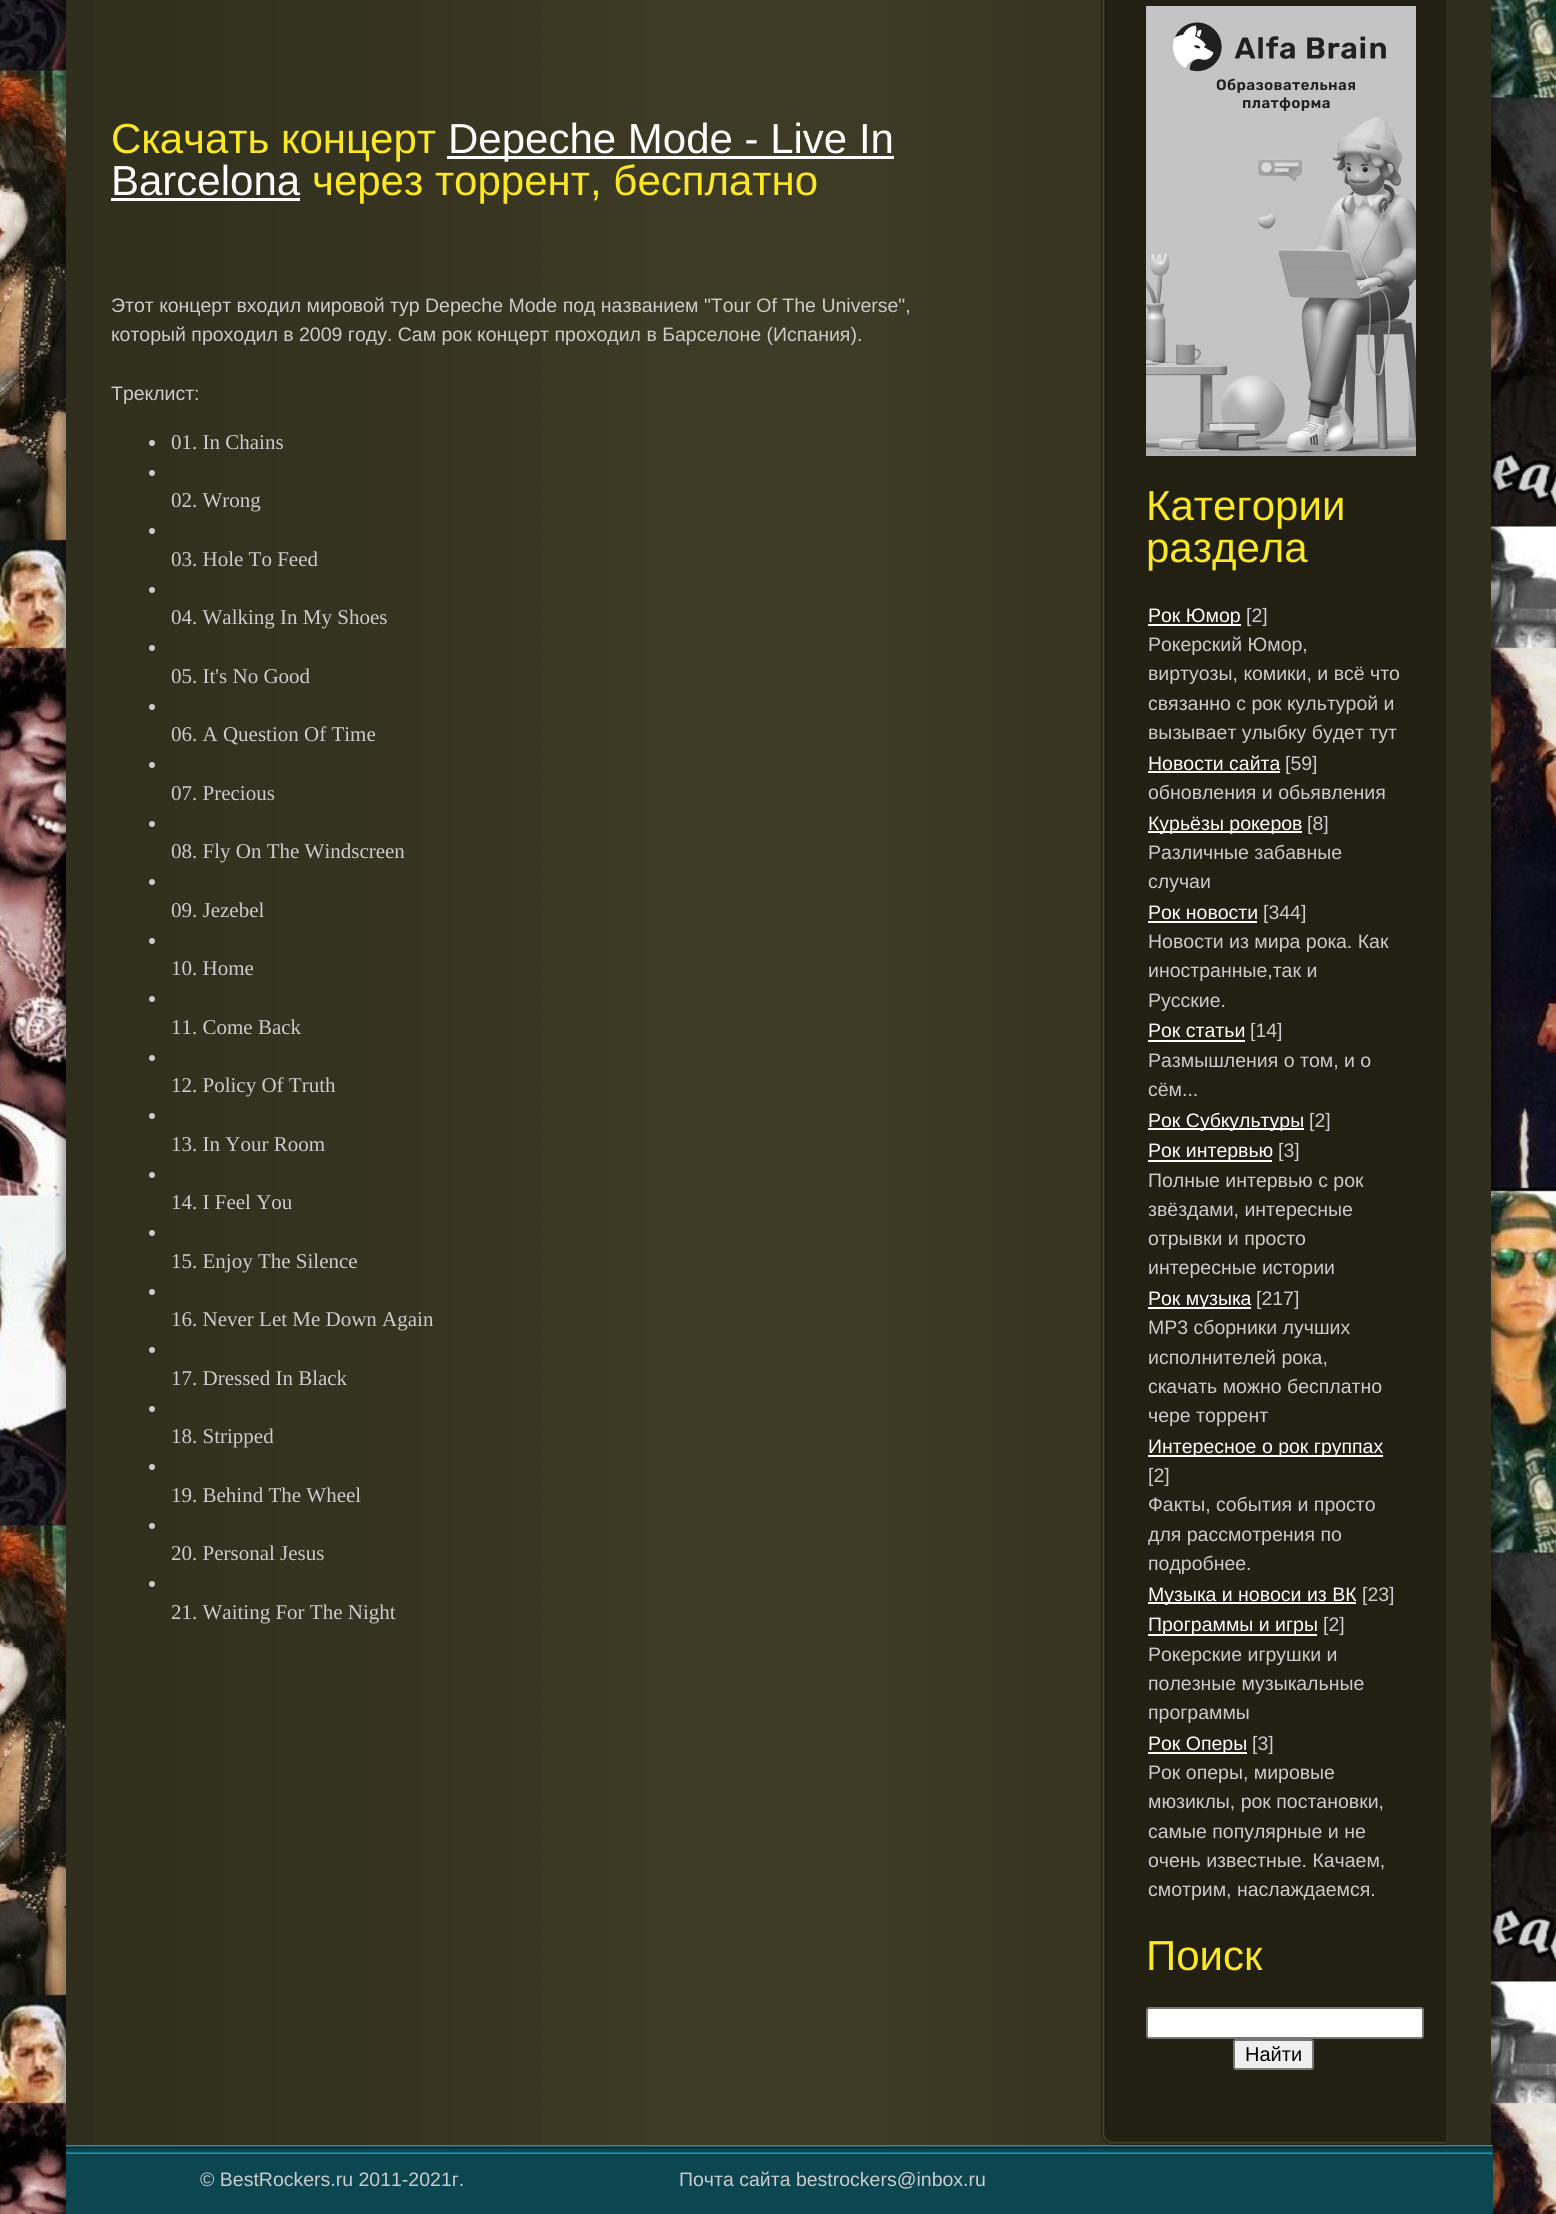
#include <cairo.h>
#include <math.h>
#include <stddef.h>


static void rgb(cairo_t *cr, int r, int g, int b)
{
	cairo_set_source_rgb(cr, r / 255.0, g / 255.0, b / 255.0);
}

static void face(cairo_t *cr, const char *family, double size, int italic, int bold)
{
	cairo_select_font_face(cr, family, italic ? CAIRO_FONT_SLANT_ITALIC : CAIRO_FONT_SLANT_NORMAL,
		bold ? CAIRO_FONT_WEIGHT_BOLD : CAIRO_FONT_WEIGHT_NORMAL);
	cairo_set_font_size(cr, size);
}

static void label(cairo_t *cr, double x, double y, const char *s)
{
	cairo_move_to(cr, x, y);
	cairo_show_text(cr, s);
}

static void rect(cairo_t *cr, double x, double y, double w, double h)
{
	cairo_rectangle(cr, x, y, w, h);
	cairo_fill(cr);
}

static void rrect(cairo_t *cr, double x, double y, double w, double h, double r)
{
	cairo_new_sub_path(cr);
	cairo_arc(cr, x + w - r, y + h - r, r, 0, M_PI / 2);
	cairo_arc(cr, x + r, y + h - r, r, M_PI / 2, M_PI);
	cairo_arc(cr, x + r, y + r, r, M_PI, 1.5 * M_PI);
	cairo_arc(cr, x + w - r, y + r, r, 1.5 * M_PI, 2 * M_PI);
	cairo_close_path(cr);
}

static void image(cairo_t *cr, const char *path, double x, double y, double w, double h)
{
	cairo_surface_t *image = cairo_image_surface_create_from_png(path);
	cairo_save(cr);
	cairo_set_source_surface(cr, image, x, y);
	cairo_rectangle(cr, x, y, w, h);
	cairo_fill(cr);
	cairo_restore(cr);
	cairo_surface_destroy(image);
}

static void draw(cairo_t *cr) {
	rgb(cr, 255, 255, 255);
	cairo_paint(cr);
	image(cr, "image0.png", 0, 0, 1556, 2214);
	image(cr, "image1.png", 55, 0, 1447, 2214);
	image(cr, "image2.png", 66, 0, 1425, 2145);
	face(cr, "Liberation Sans", 42, 0, 0);
	rgb(cr, 251, 231, 36);
	label(cr, 111, 153, "Скачать концерт");
	rgb(cr, 255, 255, 255);
	rect(cr, 447, 156, 447, 3);
	label(cr, 448, 153, "Depeche Mode - Live In");
	label(cr, 111, 195, "Barcelona");
	rect(cr, 111, 198, 189, 3);
	rgb(cr, 251, 231, 36);
	label(cr, 312, 195, "через торрент, бесплатно");
	face(cr, "Liberation Sans", 19.5, 0, 0);
	rgb(cr, 204, 204, 204);
	label(cr, 111, 312, "Этот концерт входил мировой тур Depeche Mode под названием \"Tour Of The Universe\",");
	label(cr, 111, 341, "который проходил в 2009 году. Сам рок концерт проходил в Барселоне (Испания).");
	label(cr, 111, 400, "Треклист:");
	cairo_new_path(cr);
	cairo_arc(cr, 152, 443, 3, 0, 2 * M_PI);
	cairo_fill(cr);
	face(cr, "Liberation Serif", 21, 0, 0);
	label(cr, 171, 449, "01. In Chains");
	cairo_new_path(cr);
	cairo_arc(cr, 152, 473, 3, 0, 2 * M_PI);
	cairo_fill(cr);
	label(cr, 171, 507, "02. Wrong");
	cairo_new_path(cr);
	cairo_arc(cr, 152, 531, 3, 0, 2 * M_PI);
	cairo_fill(cr);
	label(cr, 171, 566, "03. Hole To Feed");
	cairo_new_path(cr);
	cairo_arc(cr, 152, 590, 3, 0, 2 * M_PI);
	cairo_fill(cr);
	label(cr, 171, 624, "04. Walking In My Shoes");
	cairo_new_path(cr);
	cairo_arc(cr, 152, 648, 3, 0, 2 * M_PI);
	cairo_fill(cr);
	label(cr, 171, 683, "05. It's No Good");
	cairo_new_path(cr);
	cairo_arc(cr, 152, 707, 3, 0, 2 * M_PI);
	cairo_fill(cr);
	label(cr, 171, 741, "06. A Question Of Time");
	cairo_new_path(cr);
	cairo_arc(cr, 152, 765, 3, 0, 2 * M_PI);
	cairo_fill(cr);
	label(cr, 171, 800, "07. Precious");
	cairo_new_path(cr);
	cairo_arc(cr, 152, 824, 3, 0, 2 * M_PI);
	cairo_fill(cr);
	label(cr, 171, 858, "08. Fly On The Windscreen");
	cairo_new_path(cr);
	cairo_arc(cr, 152, 882, 3, 0, 2 * M_PI);
	cairo_fill(cr);
	label(cr, 171, 917, "09. Jezebel");
	cairo_new_path(cr);
	cairo_arc(cr, 152, 941, 3, 0, 2 * M_PI);
	cairo_fill(cr);
	label(cr, 171, 975, "10. Home");
	cairo_new_path(cr);
	cairo_arc(cr, 152, 999, 3, 0, 2 * M_PI);
	cairo_fill(cr);
	label(cr, 171, 1034, "11. Come Back");
	cairo_new_path(cr);
	cairo_arc(cr, 152, 1058, 3, 0, 2 * M_PI);
	cairo_fill(cr);
	label(cr, 171, 1092, "12. Policy Of Truth");
	cairo_new_path(cr);
	cairo_arc(cr, 152, 1116, 3, 0, 2 * M_PI);
	cairo_fill(cr);
	label(cr, 171, 1151, "13. In Your Room");
	cairo_new_path(cr);
	cairo_arc(cr, 152, 1175, 3, 0, 2 * M_PI);
	cairo_fill(cr);
	label(cr, 171, 1209, "14. I Feel You");
	cairo_new_path(cr);
	cairo_arc(cr, 152, 1233, 3, 0, 2 * M_PI);
	cairo_fill(cr);
	label(cr, 171, 1268, "15. Enjoy The Silence");
	cairo_new_path(cr);
	cairo_arc(cr, 152, 1292, 3, 0, 2 * M_PI);
	cairo_fill(cr);
	label(cr, 171, 1326, "16. Never Let Me Down Again");
	cairo_new_path(cr);
	cairo_arc(cr, 152, 1350, 3, 0, 2 * M_PI);
	cairo_fill(cr);
	label(cr, 171, 1385, "17. Dressed In Black");
	cairo_new_path(cr);
	cairo_arc(cr, 152, 1409, 3, 0, 2 * M_PI);
	cairo_fill(cr);
	label(cr, 171, 1443, "18. Stripped");
	cairo_new_path(cr);
	cairo_arc(cr, 152, 1467, 3, 0, 2 * M_PI);
	cairo_fill(cr);
	label(cr, 171, 1502, "19. Behind The Wheel");
	cairo_new_path(cr);
	cairo_arc(cr, 152, 1526, 3, 0, 2 * M_PI);
	cairo_fill(cr);
	label(cr, 171, 1560, "20. Personal Jesus");
	cairo_new_path(cr);
	cairo_arc(cr, 152, 1584, 3, 0, 2 * M_PI);
	cairo_fill(cr);
	label(cr, 171, 1619, "21. Waiting For The Night");
	image(cr, "image3.png", 1101, 0, 345, 2130);
	image(cr, "image4.png", 1146, 6, 270, 450);
	face(cr, "Liberation Sans", 42, 0, 0);
	rgb(cr, 251, 231, 36);
	label(cr, 1146, 520, "Категории");
	label(cr, 1146, 562, "раздела");
	rgb(cr, 255, 255, 255);
	rect(cr, 1148, 624, 93, 2);
	face(cr, "Liberation Sans", 19.5, 0, 0);
	label(cr, 1148, 622, "Рок Юмор");
	rgb(cr, 204, 204, 204);
	label(cr, 1246, 622, "[2]");
	label(cr, 1148, 651, "Рокерский Юмор,");
	label(cr, 1148, 680, "виртуозы, комики, и всё что");
	label(cr, 1148, 710, "связанно с рок культурой и");
	label(cr, 1148, 739, "вызывает улыбку будет тут");
	rgb(cr, 255, 255, 255);
	label(cr, 1148, 770, "Новости сайта");
	rect(cr, 1148, 771, 132, 2);
	rgb(cr, 204, 204, 204);
	label(cr, 1285, 770, "[59]");
	label(cr, 1148, 799, "обновления и обьявления");
	rgb(cr, 255, 255, 255);
	rect(cr, 1148, 831, 154, 2);
	label(cr, 1148, 830, "Курьёзы рокеров");
	rgb(cr, 204, 204, 204);
	label(cr, 1307, 830, "[8]");
	label(cr, 1148, 859, "Различные забавные");
	label(cr, 1148, 888, "случаи");
	rgb(cr, 255, 255, 255);
	label(cr, 1148, 919, "Рок новости");
	rect(cr, 1148, 921, 109, 2);
	rgb(cr, 204, 204, 204);
	label(cr, 1263, 919, "[344]");
	label(cr, 1148, 948, "Новости из мира рока. Как");
	label(cr, 1148, 977, "иностранные,так и");
	label(cr, 1148, 1007, "Русские.");
	rgb(cr, 255, 255, 255);
	label(cr, 1148, 1037, "Рок статьи");
	rect(cr, 1148, 1040, 97, 2);
	rgb(cr, 204, 204, 204);
	label(cr, 1250, 1037, "[14]");
	label(cr, 1148, 1067, "Размышления о том, и о");
	label(cr, 1148, 1096, "сём...");
	rgb(cr, 255, 255, 255);
	rect(cr, 1148, 1128, 156, 2);
	label(cr, 1148, 1127, "Рок Субкультуры");
	rgb(cr, 204, 204, 204);
	label(cr, 1309, 1127, "[2]");
	rgb(cr, 255, 255, 255);
	rect(cr, 1148, 1160, 124, 2);
	label(cr, 1148, 1157, "Рок интервью");
	rgb(cr, 204, 204, 204);
	label(cr, 1278, 1157, "[3]");
	label(cr, 1148, 1187, "Полные интервью с рок");
	label(cr, 1148, 1216, "звёздами, интересные");
	label(cr, 1148, 1245, "отрывки и просто");
	label(cr, 1148, 1274, "интересные истории");
	rgb(cr, 255, 255, 255);
	rect(cr, 1148, 1307, 103, 2);
	label(cr, 1148, 1305, "Рок музыка");
	rgb(cr, 204, 204, 204);
	label(cr, 1256, 1305, "[217]");
	label(cr, 1148, 1334, "MP3 сборники лучших");
	label(cr, 1148, 1364, "исполнителей рока,");
	label(cr, 1148, 1393, "скачать можно бесплатно");
	label(cr, 1148, 1422, "чере торрент");
	rgb(cr, 255, 255, 255);
	rect(cr, 1148, 1455, 235, 2);
	label(cr, 1148, 1453, "Интересное о рок группах");
	rgb(cr, 204, 204, 204);
	label(cr, 1148, 1482, "[2]");
	label(cr, 1148, 1511, "Факты, события и просто");
	label(cr, 1148, 1541, "для рассмотрения по");
	label(cr, 1148, 1570, "подробнее.");
	rgb(cr, 255, 255, 255);
	rect(cr, 1148, 1602, 208, 2);
	label(cr, 1148, 1601, "Музыка и новоси из ВК");
	rgb(cr, 204, 204, 204);
	label(cr, 1362, 1601, "[23]");
	rgb(cr, 255, 255, 255);
	rect(cr, 1148, 1634, 169, 2);
	label(cr, 1148, 1631, "Программы и игры");
	rgb(cr, 204, 204, 204);
	label(cr, 1323, 1631, "[2]");
	label(cr, 1148, 1661, "Рокерские игрушки и");
	label(cr, 1148, 1690, "полезные музыкальные");
	label(cr, 1148, 1719, "программы");
	rgb(cr, 255, 255, 255);
	rect(cr, 1148, 1752, 99, 2);
	label(cr, 1148, 1750, "Рок Оперы");
	rgb(cr, 204, 204, 204);
	label(cr, 1252, 1750, "[3]");
	label(cr, 1148, 1779, "Рок оперы, мировые");
	label(cr, 1148, 1808, "мюзиклы, рок постановки,");
	label(cr, 1148, 1838, "самые популярные и не");
	label(cr, 1148, 1867, "очень известные. Качаем,");
	label(cr, 1148, 1896, "смотрим, наслаждаемся.");
	face(cr, "Liberation Sans", 42, 0, 0);
	rgb(cr, 251, 231, 36);
	label(cr, 1146, 1970, "Поиск");
	rgb(cr, 255, 255, 255);
	rrect(cr, 1147, 2008, 276, 30, 2);
	cairo_fill_preserve(cr);
	rgb(cr, 118, 118, 118);
	cairo_stroke(cr);
	rgb(cr, 239, 239, 239);
	rrect(cr, 1234, 2040, 79, 29, 2);
	cairo_fill_preserve(cr);
	rgb(cr, 118, 118, 118);
	cairo_stroke(cr);
	face(cr, "Liberation Sans", 20, 0, 0);
	rgb(cr, 0, 0, 0);
	label(cr, 1245, 2061, "Найти");
	image(cr, "image5.png", 1101, 2130, 345, 15);
	rgb(cr, 12, 70, 80);
	rect(cr, 66, 2145, 1427, 69);
	image(cr, "image6.png", 66, 2145, 1427, 9);
	face(cr, "Liberation Sans", 19.5, 0, 0);
	rgb(cr, 204, 204, 204);
	label(cr, 200, 2186, "© BestRockers.ru 2011-2021г.");
	label(cr, 679, 2186, "Почта сайта bestrockers@inbox.ru");
}

int main(void) {
	cairo_surface_t *surface = cairo_image_surface_create(CAIRO_FORMAT_RGB24, 1556, 2214);
	cairo_t *cr = cairo_create(surface);
	cairo_font_options_t *options = cairo_font_options_create();
	cairo_font_options_set_hint_metrics(options, CAIRO_HINT_METRICS_OFF);
	cairo_font_options_set_hint_style(options, CAIRO_HINT_STYLE_NONE);
	cairo_set_font_options(cr, options);
	cairo_set_miter_limit(cr, 4);
	draw(cr);
	cairo_surface_write_to_png(surface, "render.png");
	cairo_font_options_destroy(options);
	cairo_destroy(cr);
	cairo_surface_destroy(surface);
	return 0;
}
